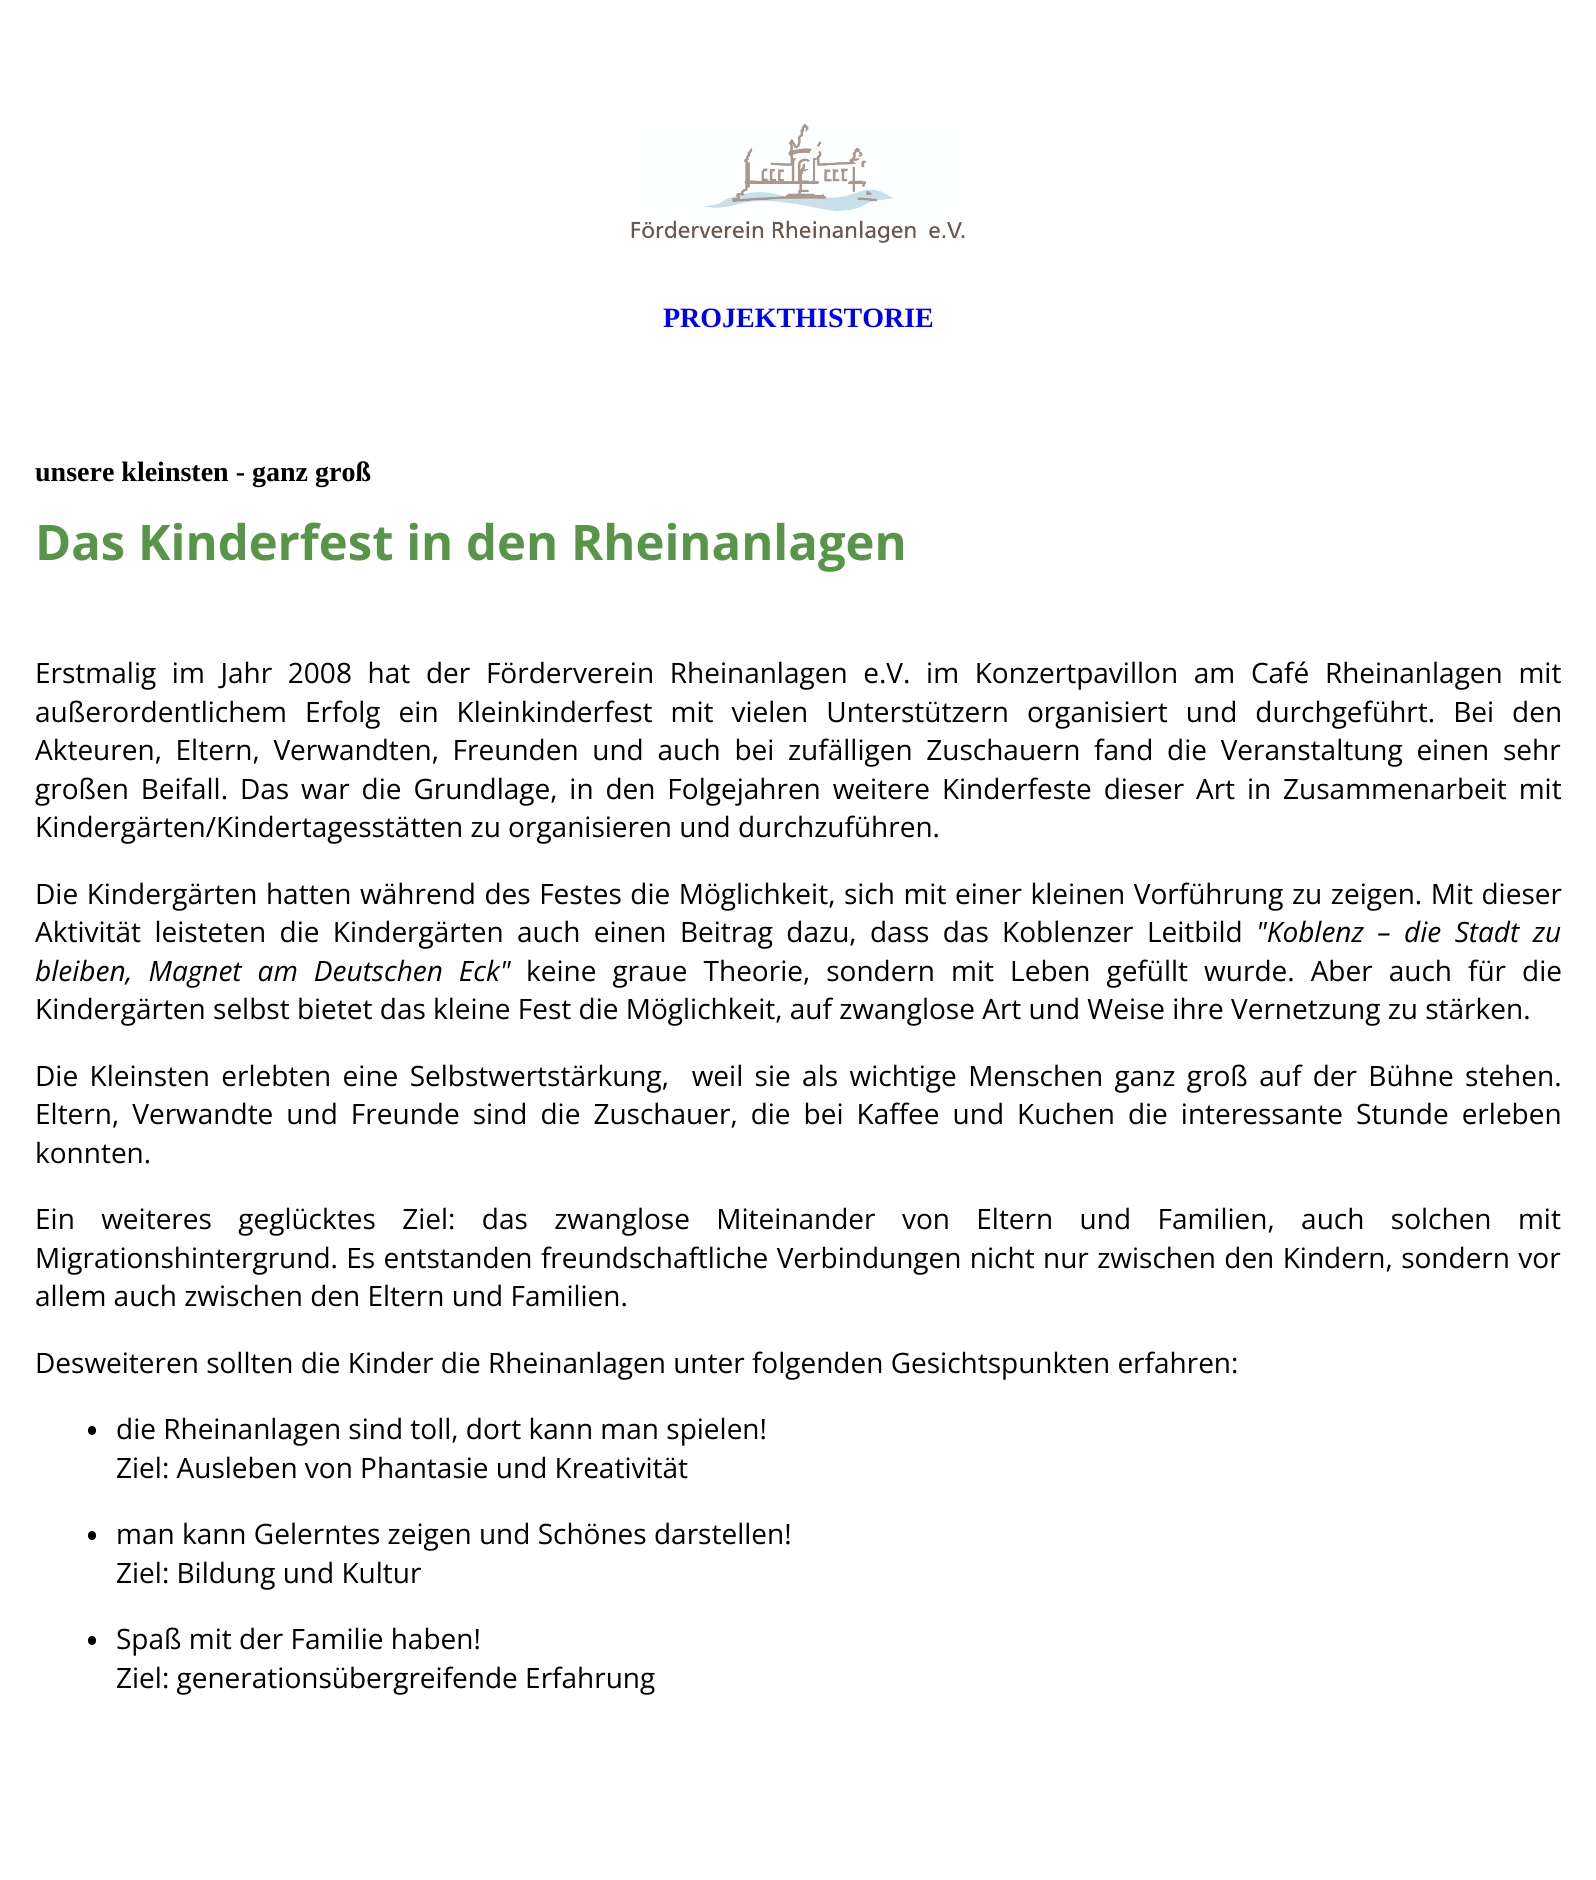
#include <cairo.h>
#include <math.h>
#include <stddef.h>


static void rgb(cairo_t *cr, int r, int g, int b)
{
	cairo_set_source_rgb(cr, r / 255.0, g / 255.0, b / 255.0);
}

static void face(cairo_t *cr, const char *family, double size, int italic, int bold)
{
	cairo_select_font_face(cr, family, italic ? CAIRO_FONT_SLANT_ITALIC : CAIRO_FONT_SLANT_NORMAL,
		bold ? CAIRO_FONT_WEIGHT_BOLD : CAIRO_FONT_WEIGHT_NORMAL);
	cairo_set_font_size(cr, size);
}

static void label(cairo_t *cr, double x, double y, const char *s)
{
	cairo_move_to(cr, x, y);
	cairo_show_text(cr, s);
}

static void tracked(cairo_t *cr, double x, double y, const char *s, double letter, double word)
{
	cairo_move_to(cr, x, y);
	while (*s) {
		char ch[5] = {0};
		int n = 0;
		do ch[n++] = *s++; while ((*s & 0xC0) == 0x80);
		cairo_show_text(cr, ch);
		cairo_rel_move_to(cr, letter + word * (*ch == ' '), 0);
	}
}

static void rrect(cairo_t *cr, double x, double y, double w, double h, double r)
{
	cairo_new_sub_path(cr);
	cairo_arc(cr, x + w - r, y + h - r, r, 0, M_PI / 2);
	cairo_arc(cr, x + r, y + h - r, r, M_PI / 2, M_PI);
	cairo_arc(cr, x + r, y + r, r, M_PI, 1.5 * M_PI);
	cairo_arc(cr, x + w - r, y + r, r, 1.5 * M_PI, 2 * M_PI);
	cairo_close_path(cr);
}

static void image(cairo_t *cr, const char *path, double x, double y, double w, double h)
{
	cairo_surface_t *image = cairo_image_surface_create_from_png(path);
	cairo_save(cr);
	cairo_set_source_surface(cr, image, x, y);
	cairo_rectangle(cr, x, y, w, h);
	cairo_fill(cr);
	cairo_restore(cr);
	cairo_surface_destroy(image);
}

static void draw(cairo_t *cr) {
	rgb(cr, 255, 255, 255);
	cairo_paint(cr);
	image(cr, "image0.png", 631, 123, 334, 120);
	face(cr, "Liberation Serif", 28, 0, 1);
	rgb(cr, 0, 0, 238);
	label(cr, 663, 327, "PROJEKTHISTORIE");
	rgb(cr, 0, 0, 0);
	label(cr, 35, 481, "unsere kleinsten - ganz groß");
	face(cr, "Open Sans", 49, 0, 1);
	rgb(cr, 88, 149, 73);
	label(cr, 35, 560, "Das Kinderfest in den Rheinanlagen");
	face(cr, "Open Sans", 28, 0, 0);
	rgb(cr, 0, 0, 0);
	tracked(cr, 35, 683, "Erstmalig im Jahr 2008 hat der Förderverein Rheinanlagen e.V. im Konzertpavillon am Café Rheinanlagen mit", 0, 8.4);
	tracked(cr, 35, 722, "außerordentlichem Erfolg ein Kleinkinderfest mit vielen Unterstützern organisiert und durchgeführt. Bei den", 0, 10.75);
	tracked(cr, 35, 760, "Akteuren, Eltern, Verwandten, Freunden und auch bei zufälligen Zuschauern fand die Veranstaltung einen sehr", 0, 6.4);
	tracked(cr, 35, 799, "großen Beifall. Das war die Grundlage, in den Folgejahren weitere Kinderfeste dieser Art in Zusammenarbeit mit", 0, 4.6);
	label(cr, 35, 837, "Kindergärten/Kindertagesstätten zu organisieren und durchzuführen.");
	tracked(cr, 35, 904, "Die Kindergärten hatten während des Festes die Möglichkeit, sich mit einer kleinen Vorführung zu zeigen. Mit dieser", 0, 1.25);
	tracked(cr, 35, 942, "Aktivität leisteten die Kindergärten auch einen Beitrag dazu, dass das Koblenzer Leitbild", 0, 6.1);
	face(cr, "Open Sans", 28, 1, 0);
	tracked(cr, 1256, 942, "\"Koblenz – die Stadt zu", 0, 6.1);
	tracked(cr, 35, 981, "bleiben, Magnet am Deutschen Eck\"", 0, 8.75);
	face(cr, "Open Sans", 28, 0, 0);
	tracked(cr, 526, 981, "keine graue Theorie, sondern mit Leben gefüllt wurde. Aber auch für die", 0, 8.75);
	label(cr, 35, 1019, "Kindergärten selbst bietet das kleine Fest die Möglichkeit, auf zwanglose Art und Weise ihre Vernetzung zu stärken.");
	tracked(cr, 35, 1086, "Die Kleinsten erlebten eine Selbstwertstärkung,  weil sie als wichtige Menschen ganz groß auf der Bühne stehen.", 0, 4.1);
	tracked(cr, 35, 1124, "Eltern, Verwandte und Freunde sind die Zuschauer, die bei Kaffee und Kuchen die interessante Stunde erleben", 0, 5.75);
	label(cr, 35, 1163, "konnten.");
	tracked(cr, 35, 1229, "Ein weiteres geglücktes Ziel: das zwanglose Miteinander von Eltern und Familien, auch solchen mit", 0, 19.1);
	tracked(cr, 35, 1268, "Migrationshintergrund. Es entstanden freundschaftliche Verbindungen nicht nur zwischen den Kindern, sondern vor", 0, 1.1);
	label(cr, 35, 1306, "allem auch zwischen den Eltern und Familien.");
	label(cr, 35, 1373, "Desweiteren sollten die Kinder die Rheinanlagen unter folgenden Gesichtspunkten erfahren:");
	rrect(cr, 88, 1426, 8, 9, 4);
	cairo_fill(cr);
	label(cr, 116, 1439, "die Rheinanlagen sind toll, dort kann man spielen!");
	label(cr, 116, 1478, "Ziel: Ausleben von Phantasie und Kreativität");
	rrect(cr, 88, 1531, 8, 9, 4);
	cairo_fill(cr);
	label(cr, 116, 1544, "man kann Gelerntes zeigen und Schönes darstellen!");
	label(cr, 116, 1583, "Ziel: Bildung und Kultur");
	rrect(cr, 88, 1636, 8, 9, 4);
	cairo_fill(cr);
	label(cr, 116, 1649, "Spaß mit der Familie haben!");
	label(cr, 116, 1688, "Ziel: generationsübergreifende Erfahrung");
}

int main(void) {
	cairo_surface_t *surface = cairo_image_surface_create(CAIRO_FORMAT_RGB24, 1596, 1880);
	cairo_t *cr = cairo_create(surface);
	cairo_font_options_t *options = cairo_font_options_create();
	cairo_font_options_set_hint_metrics(options, CAIRO_HINT_METRICS_OFF);
	cairo_font_options_set_hint_style(options, CAIRO_HINT_STYLE_NONE);
	cairo_set_font_options(cr, options);
	cairo_set_miter_limit(cr, 4);
	draw(cr);
	cairo_surface_write_to_png(surface, "render.png");
	cairo_font_options_destroy(options);
	cairo_destroy(cr);
	cairo_surface_destroy(surface);
	return 0;
}
